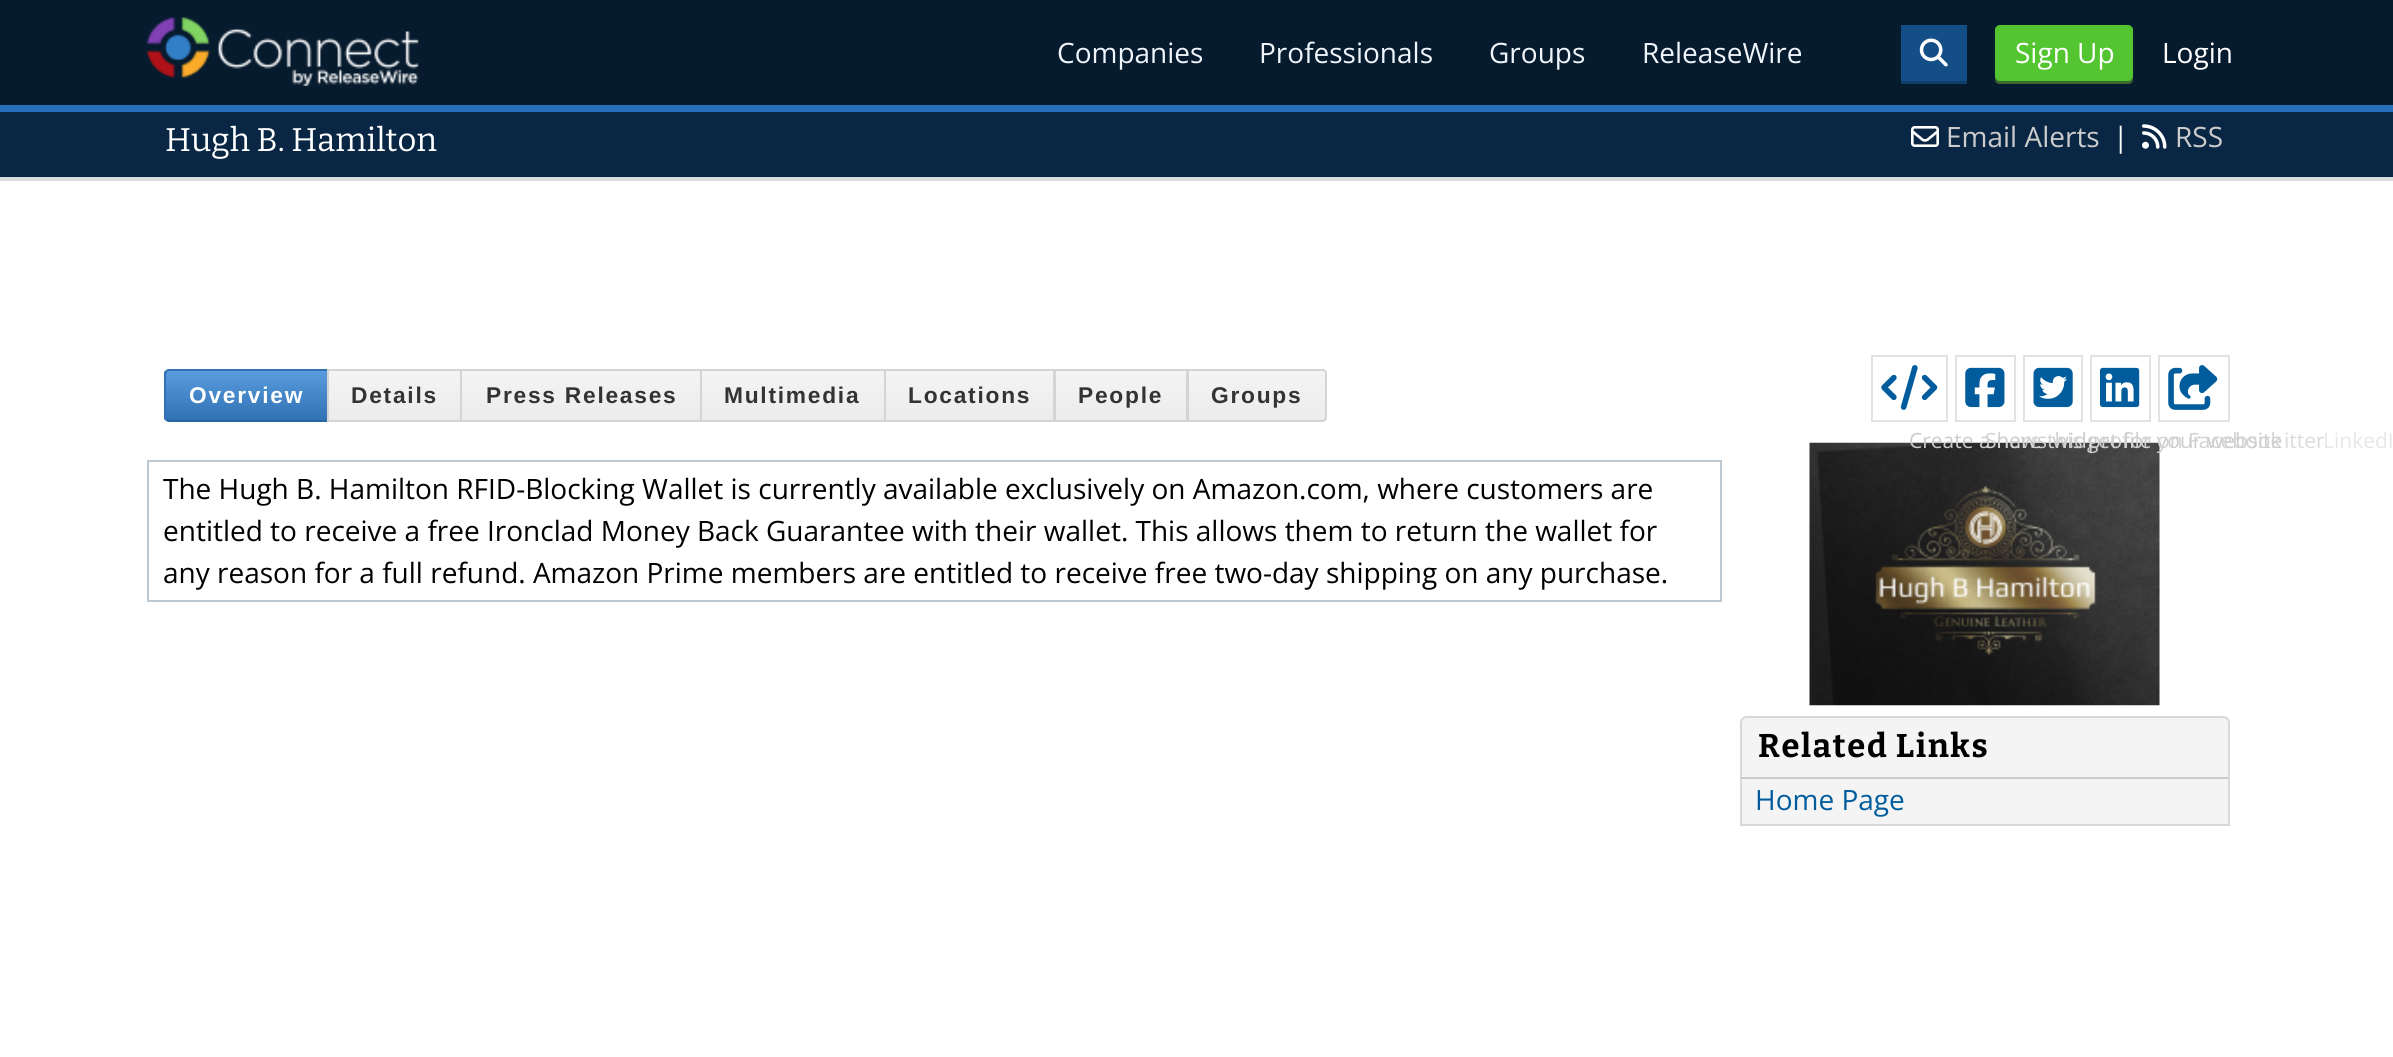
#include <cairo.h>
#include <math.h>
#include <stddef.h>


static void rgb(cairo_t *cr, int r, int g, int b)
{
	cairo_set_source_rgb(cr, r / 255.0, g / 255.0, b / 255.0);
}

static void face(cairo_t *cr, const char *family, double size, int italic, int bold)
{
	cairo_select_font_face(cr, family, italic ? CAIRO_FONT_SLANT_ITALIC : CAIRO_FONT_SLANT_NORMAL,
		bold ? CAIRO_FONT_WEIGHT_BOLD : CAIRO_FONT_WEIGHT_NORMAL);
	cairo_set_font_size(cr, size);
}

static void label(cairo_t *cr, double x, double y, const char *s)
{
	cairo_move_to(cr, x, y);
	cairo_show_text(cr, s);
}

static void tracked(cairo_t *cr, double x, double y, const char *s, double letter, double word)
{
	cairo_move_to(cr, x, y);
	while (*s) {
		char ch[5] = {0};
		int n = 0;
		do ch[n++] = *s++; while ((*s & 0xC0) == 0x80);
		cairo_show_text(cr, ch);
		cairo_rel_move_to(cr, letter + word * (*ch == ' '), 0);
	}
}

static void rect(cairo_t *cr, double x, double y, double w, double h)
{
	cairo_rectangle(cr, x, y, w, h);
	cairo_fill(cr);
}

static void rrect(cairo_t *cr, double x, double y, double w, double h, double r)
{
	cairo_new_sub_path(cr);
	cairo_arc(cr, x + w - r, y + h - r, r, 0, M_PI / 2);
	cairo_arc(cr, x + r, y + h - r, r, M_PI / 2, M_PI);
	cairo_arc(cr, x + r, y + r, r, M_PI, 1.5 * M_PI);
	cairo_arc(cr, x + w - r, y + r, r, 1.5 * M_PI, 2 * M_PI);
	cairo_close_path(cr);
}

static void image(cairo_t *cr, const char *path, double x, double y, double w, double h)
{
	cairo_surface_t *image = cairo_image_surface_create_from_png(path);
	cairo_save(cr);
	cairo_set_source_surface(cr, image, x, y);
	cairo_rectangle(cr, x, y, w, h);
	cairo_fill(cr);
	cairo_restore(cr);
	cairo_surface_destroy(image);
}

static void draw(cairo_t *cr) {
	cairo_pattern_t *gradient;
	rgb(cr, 255, 255, 255);
	cairo_paint(cr);
	rgb(cr, 6, 27, 45);
	rect(cr, 0, 0, 2393, 105);
	rgb(cr, 38, 111, 188);
	rect(cr, 0, 105, 2393, 7);
	image(cr, "image0.png", 147, 17, 272, 69);
	face(cr, "Open Sans", 28, 0, 0);
	rgb(cr, 239, 245, 251);
	label(cr, 1057, 63, "Companies");
	label(cr, 1259, 63, "Professionals");
	label(cr, 1489, 63, "Groups");
	label(cr, 1642, 63, "ReleaseWire");
	rgb(cr, 16, 62, 106);
	rect(cr, 1901, 81, 66, 3);
	rgb(cr, 19, 78, 135);
	rect(cr, 1901, 25, 66, 56);
	image(cr, "image1.png", 1919, 38, 29, 29);
	rgb(cr, 59, 106, 46);
	cairo_new_path(cr);
	cairo_move_to(cr, 1995, 75);
	cairo_line_to(cr, 1995, 79);
	cairo_curve_to(cr, 1995, 82, 1997, 84, 2000, 84);
	cairo_line_to(cr, 2128, 84);
	cairo_curve_to(cr, 2131, 84, 2133, 82, 2133, 79);
	cairo_line_to(cr, 2133, 77);
	cairo_curve_to(cr, 2132, 79, 2130, 80, 2128, 80);
	cairo_line_to(cr, 2000, 80);
	cairo_curve_to(cr, 1997, 80, 1995, 78, 1995, 75);
	cairo_close_path(cr);
	cairo_fill(cr);
	rgb(cr, 83, 197, 48);
	rrect(cr, 1995, 25, 138, 56, 5);
	cairo_fill(cr);
	rgb(cr, 255, 255, 255);
	label(cr, 2015, 63, "Sign Up");
	label(cr, 2162, 63, "Login");
	rgb(cr, 9, 39, 68);
	rect(cr, 0, 112, 2393, 65);
	rgb(cr, 218, 221, 224);
	rect(cr, 0, 177, 2393, 4);
	face(cr, "Bitter", 32.75, 0, 0);
	rgb(cr, 255, 255, 255);
	label(cr, 165, 151, "Hugh B. Hamilton");
	image(cr, "image2.png", 1911, 126, 28, 21);
	face(cr, "Open Sans", 28, 0, 0);
	rgb(cr, 204, 204, 204);
	label(cr, 1946, 147, "Email Alerts");
	rgb(cr, 255, 255, 255);
	label(cr, 2113, 147, "|");
	image(cr, "image3.png", 2142, 124, 25, 25);
	rgb(cr, 204, 204, 204);
	label(cr, 2175, 147, "RSS");
	gradient = cairo_pattern_create_linear(247, 371, 247, 420);
	cairo_pattern_add_color_stop_rgba(gradient, 0, 0.349, 0.608, 0.863, 1);
	cairo_pattern_add_color_stop_rgba(gradient, 1, 0.188, 0.447, 0.702, 1);
	cairo_set_source(cr, gradient);
	cairo_pattern_destroy(gradient);
	rect(cr, 166, 371, 161, 49);
	rgb(cr, 48, 114, 179);
	cairo_new_path(cr);
	cairo_move_to(cr, 169, 371);
	cairo_line_to(cr, 167, 372);
	cairo_line_to(cr, 166, 370);
	cairo_line_to(cr, 168, 369);
	cairo_line_to(cr, 329, 369);
	cairo_line_to(cr, 327, 371);
	cairo_close_path(cr);
	cairo_fill(cr);
	rgb(cr, 42, 101, 160);
	cairo_new_path(cr);
	cairo_move_to(cr, 329, 422);
	cairo_line_to(cr, 168, 422);
	cairo_line_to(cr, 166, 421);
	cairo_line_to(cr, 167, 419);
	cairo_line_to(cr, 169, 420);
	cairo_line_to(cr, 327, 420);
	cairo_close_path(cr);
	cairo_fill(cr);
	rgb(cr, 48, 114, 179);
	cairo_new_path(cr);
	cairo_move_to(cr, 164, 372);
	cairo_line_to(cr, 166, 370);
	cairo_line_to(cr, 167, 372);
	cairo_line_to(cr, 166, 374);
	cairo_line_to(cr, 166, 417);
	cairo_line_to(cr, 167, 419);
	cairo_line_to(cr, 166, 421);
	cairo_line_to(cr, 164, 419);
	cairo_close_path(cr);
	cairo_fill(cr);
	face(cr, "Liberation Sans", 22.75, 0, 1);
	rgb(cr, 255, 255, 255);
	tracked(cr, 189, 403, "Overview", 1.75, 0);
	gradient = cairo_pattern_create_linear(395, 371, 395, 420);
	cairo_pattern_add_color_stop_rgba(gradient, 0, 0.957, 0.957, 0.957, 1);
	cairo_pattern_add_color_stop_rgba(gradient, 1, 0.925, 0.925, 0.925, 1);
	cairo_set_source(cr, gradient);
	cairo_pattern_destroy(gradient);
	rect(cr, 329, 371, 131, 49);
	cairo_rectangle(cr, 328, 370, 133, 51);
	rgb(cr, 212, 212, 212);
	cairo_stroke(cr);
	rgb(cr, 51, 51, 51);
	tracked(cr, 351, 403, "Details", 1.75, 0);
	gradient = cairo_pattern_create_linear(581, 371, 581, 420);
	cairo_pattern_add_color_stop_rgba(gradient, 0, 0.957, 0.957, 0.957, 1);
	cairo_pattern_add_color_stop_rgba(gradient, 1, 0.925, 0.925, 0.925, 1);
	cairo_set_source(cr, gradient);
	cairo_pattern_destroy(gradient);
	rect(cr, 462, 371, 238, 49);
	cairo_rectangle(cr, 461, 370, 240, 51);
	rgb(cr, 212, 212, 212);
	cairo_stroke(cr);
	rgb(cr, 51, 51, 51);
	tracked(cr, 486, 403, "Press Releases", 1.75, 0);
	gradient = cairo_pattern_create_linear(793, 371, 793, 420);
	cairo_pattern_add_color_stop_rgba(gradient, 0, 0.957, 0.957, 0.957, 1);
	cairo_pattern_add_color_stop_rgba(gradient, 1, 0.925, 0.925, 0.925, 1);
	cairo_set_source(cr, gradient);
	cairo_pattern_destroy(gradient);
	rect(cr, 702, 371, 182, 49);
	cairo_rectangle(cr, 701, 370, 184, 51);
	rgb(cr, 212, 212, 212);
	cairo_stroke(cr);
	rgb(cr, 51, 51, 51);
	tracked(cr, 724, 403, "Multimedia", 1.75, 0);
	gradient = cairo_pattern_create_linear(970, 371, 970, 420);
	cairo_pattern_add_color_stop_rgba(gradient, 0, 0.957, 0.957, 0.957, 1);
	cairo_pattern_add_color_stop_rgba(gradient, 1, 0.925, 0.925, 0.925, 1);
	cairo_set_source(cr, gradient);
	cairo_pattern_destroy(gradient);
	rect(cr, 886, 371, 167, 49);
	cairo_rectangle(cr, 885, 370, 169, 51);
	rgb(cr, 212, 212, 212);
	cairo_stroke(cr);
	rgb(cr, 51, 51, 51);
	tracked(cr, 908, 403, "Locations", 1.75, 0);
	gradient = cairo_pattern_create_linear(1121, 371, 1121, 420);
	cairo_pattern_add_color_stop_rgba(gradient, 0, 0.957, 0.957, 0.957, 1);
	cairo_pattern_add_color_stop_rgba(gradient, 1, 0.925, 0.925, 0.925, 1);
	cairo_set_source(cr, gradient);
	cairo_pattern_destroy(gradient);
	rect(cr, 1056, 371, 130, 49);
	cairo_rectangle(cr, 1055, 370, 132, 51);
	rgb(cr, 212, 212, 212);
	cairo_stroke(cr);
	rgb(cr, 51, 51, 51);
	tracked(cr, 1078, 403, "People", 1.75, 0);
	gradient = cairo_pattern_create_linear(1257, 371, 1257, 420);
	cairo_pattern_add_color_stop_rgba(gradient, 0, 0.957, 0.957, 0.957, 1);
	cairo_pattern_add_color_stop_rgba(gradient, 1, 0.925, 0.925, 0.925, 1);
	cairo_set_source(cr, gradient);
	cairo_pattern_destroy(gradient);
	rect(cr, 1189, 371, 138, 49);
	cairo_new_path(cr);
	cairo_move_to(cr, 1188, 370);
	cairo_line_to(cr, 1323, 370);
	cairo_curve_to(cr, 1324.5, 370, 1326, 371.5, 1326, 373);
	cairo_line_to(cr, 1326, 418);
	cairo_curve_to(cr, 1326, 419.5, 1324.5, 421, 1323, 421);
	cairo_line_to(cr, 1188, 421);
	cairo_close_path(cr);
	rgb(cr, 212, 212, 212);
	cairo_stroke(cr);
	rgb(cr, 51, 51, 51);
	tracked(cr, 1211, 403, "Groups", 1.75, 0);
	cairo_rectangle(cr, 148, 461, 1573, 140);
	rgb(cr, 189, 200, 209);
	cairo_stroke(cr);
	face(cr, "Open Sans", 28, 0, 0);
	rgb(cr, 0, 0, 0);
	label(cr, 163, 499, "The Hugh B. Hamilton RFID-Blocking Wallet is currently available exclusively on Amazon.com, where customers are");
	label(cr, 163, 541, "entitled to receive a free Ironclad Money Back Guarantee with their wallet. This allows them to return the wallet for");
	label(cr, 163, 583, "any reason for a full refund. Amazon Prime members are entitled to receive free two-day shipping on any purchase.");
	cairo_rectangle(cr, 2159, 356, 70, 65);
	rgb(cr, 226, 226, 226);
	cairo_stroke(cr);
	image(cr, "image4.png", 2168, 365, 50, 45);
	cairo_rectangle(cr, 1872, 356, 75, 65);
	cairo_stroke(cr);
	image(cr, "image5.png", 1881, 365, 57, 45);
	image(cr, "image9.png", 1809, 442, 351, 264);
	face(cr, "Open Sans", 21, 0, 0);
	rgb(cr, 204, 204, 204);
	label(cr, 1909, 448, "Create a news widget for your website");
	cairo_rectangle(cr, 1956, 356, 59, 65);
	rgb(cr, 226, 226, 226);
	cairo_stroke(cr);
	image(cr, "image6.png", 1965, 367, 40, 41);
	rgb(cr, 210, 210, 210);
	label(cr, 1985, 448, "Share this profile on Facebook");
	cairo_rectangle(cr, 2024, 356, 58, 65);
	rgb(cr, 226, 226, 226);
	cairo_stroke(cr);
	image(cr, "image7.png", 2033, 367, 40, 41);
	rgb(cr, 219, 219, 219);
	label(cr, 2284, 448, "itter");
	cairo_rectangle(cr, 2091, 356, 59, 65);
	rgb(cr, 226, 226, 226);
	cairo_stroke(cr);
	image(cr, "image8.png", 2100, 367, 40, 41);
	rgb(cr, 231, 231, 231);
	label(cr, 2323, 448, "LinkedI");
	rgb(cr, 244, 244, 244);
	cairo_new_path(cr);
	cairo_move_to(cr, 1747, 717);
	cairo_line_to(cr, 2223, 717);
	cairo_curve_to(cr, 2226.5, 717, 2229, 719.5, 2229, 723);
	cairo_line_to(cr, 2229, 825);
	cairo_line_to(cr, 1741, 825);
	cairo_line_to(cr, 1741, 723);
	cairo_curve_to(cr, 1741, 719.5, 1743.5, 717, 1747, 717);
	cairo_close_path(cr);
	cairo_fill_preserve(cr);
	rgb(cr, 214, 216, 218);
	cairo_stroke(cr);
	rgb(cr, 204, 204, 204);
	rect(cr, 1741, 777, 487, 2);
	face(cr, "Bitter", 32.75, 0, 1);
	rgb(cr, 0, 0, 0);
	tracked(cr, 1758, 757, "Related Links", 1.6, 0);
	face(cr, "Open Sans", 28, 0, 0);
	rgb(cr, 0, 92, 156);
	label(cr, 1755, 810, "Home Page");
}

int main(void) {
	cairo_surface_t *surface = cairo_image_surface_create(CAIRO_FORMAT_RGB24, 2393, 1057);
	cairo_t *cr = cairo_create(surface);
	cairo_font_options_t *options = cairo_font_options_create();
	cairo_font_options_set_hint_metrics(options, CAIRO_HINT_METRICS_OFF);
	cairo_font_options_set_hint_style(options, CAIRO_HINT_STYLE_NONE);
	cairo_set_font_options(cr, options);
	cairo_set_miter_limit(cr, 4);
	draw(cr);
	cairo_surface_write_to_png(surface, "render.png");
	cairo_font_options_destroy(options);
	cairo_destroy(cr);
	cairo_surface_destroy(surface);
	return 0;
}
